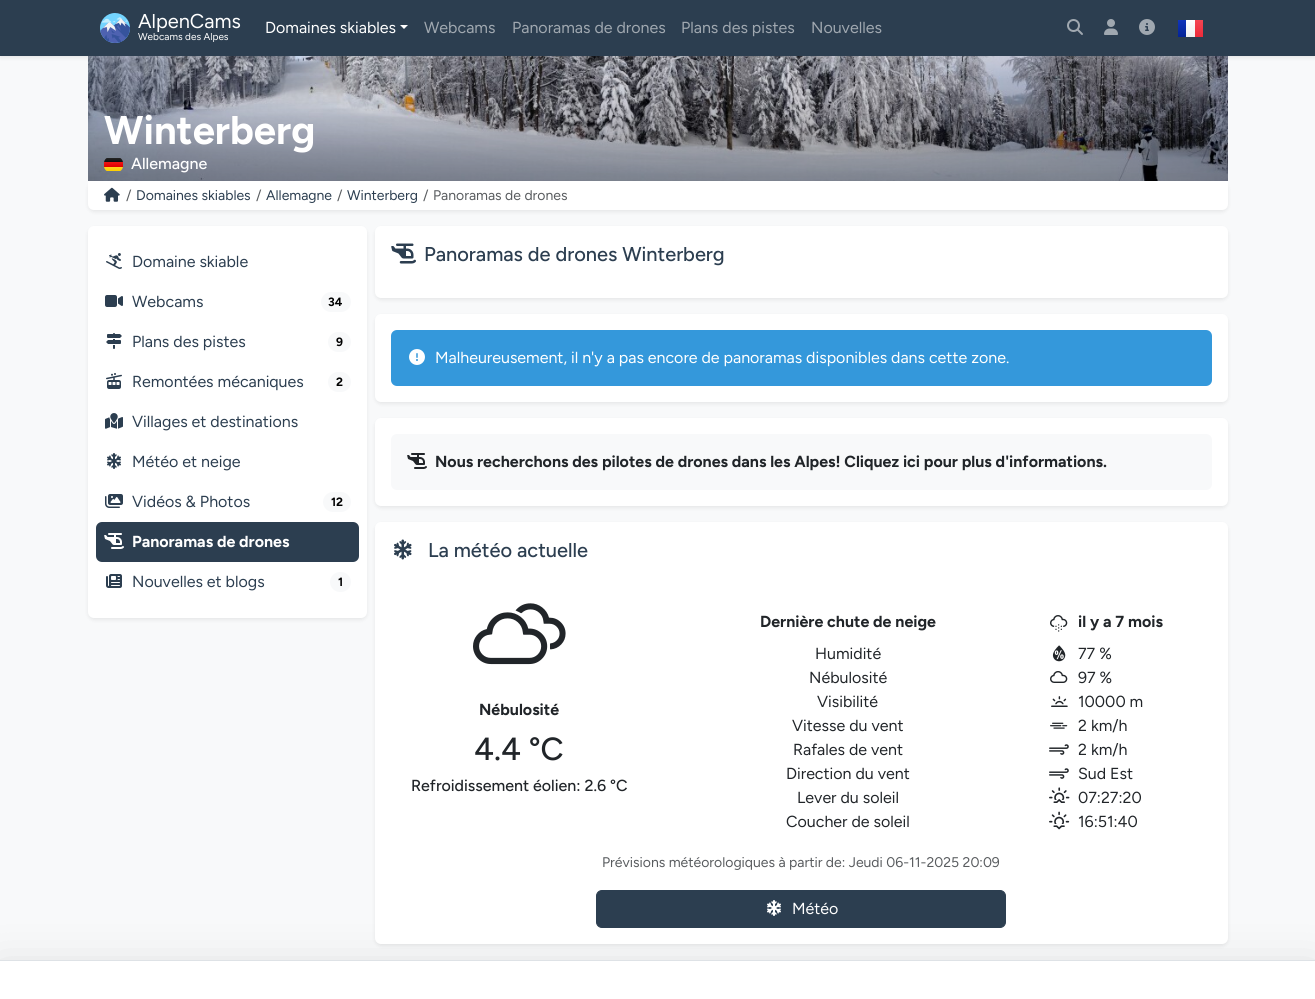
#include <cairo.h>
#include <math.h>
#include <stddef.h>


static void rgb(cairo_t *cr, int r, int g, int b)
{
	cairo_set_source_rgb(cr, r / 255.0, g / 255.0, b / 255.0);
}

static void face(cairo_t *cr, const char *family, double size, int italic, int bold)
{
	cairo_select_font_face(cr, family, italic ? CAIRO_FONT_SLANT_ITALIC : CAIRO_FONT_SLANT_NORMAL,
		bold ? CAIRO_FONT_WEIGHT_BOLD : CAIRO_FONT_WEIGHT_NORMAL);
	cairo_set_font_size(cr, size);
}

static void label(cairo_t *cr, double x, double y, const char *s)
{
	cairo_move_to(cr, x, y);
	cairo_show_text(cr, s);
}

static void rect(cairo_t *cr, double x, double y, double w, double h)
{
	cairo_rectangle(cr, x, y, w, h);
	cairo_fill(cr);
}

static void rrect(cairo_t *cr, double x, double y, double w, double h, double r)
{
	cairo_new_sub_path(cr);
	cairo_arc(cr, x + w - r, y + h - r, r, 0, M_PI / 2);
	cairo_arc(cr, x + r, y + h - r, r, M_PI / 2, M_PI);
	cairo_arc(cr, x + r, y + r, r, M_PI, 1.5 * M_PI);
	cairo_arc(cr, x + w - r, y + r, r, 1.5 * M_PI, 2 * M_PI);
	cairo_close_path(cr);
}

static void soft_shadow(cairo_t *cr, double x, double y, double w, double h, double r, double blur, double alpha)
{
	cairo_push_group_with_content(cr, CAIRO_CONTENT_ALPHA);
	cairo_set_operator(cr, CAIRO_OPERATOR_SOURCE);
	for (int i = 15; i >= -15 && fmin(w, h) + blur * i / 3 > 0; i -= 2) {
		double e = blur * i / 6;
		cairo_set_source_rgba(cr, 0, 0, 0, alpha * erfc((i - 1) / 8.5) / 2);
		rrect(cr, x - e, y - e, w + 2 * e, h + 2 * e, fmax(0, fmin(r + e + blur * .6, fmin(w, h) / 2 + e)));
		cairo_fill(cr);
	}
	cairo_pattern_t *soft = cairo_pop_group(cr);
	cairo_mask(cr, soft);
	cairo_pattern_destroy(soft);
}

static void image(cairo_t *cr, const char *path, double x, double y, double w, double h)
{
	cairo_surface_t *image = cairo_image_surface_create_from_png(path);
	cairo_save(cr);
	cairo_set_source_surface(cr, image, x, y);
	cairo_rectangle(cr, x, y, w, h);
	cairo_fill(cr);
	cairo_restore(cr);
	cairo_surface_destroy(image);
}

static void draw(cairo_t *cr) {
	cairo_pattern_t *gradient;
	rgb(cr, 248, 249, 250);
	cairo_paint(cr);
	rgb(cr, 0, 0, 0);
	soft_shadow(cr, 0, 2, 1315, 56, 0, 2, 0.07);
	rgb(cr, 44, 62, 80);
	rect(cr, 0, 0, 1315, 56);
	image(cr, "image0.png", 100, 13, 30, 30);
	face(cr, "Figtree", 20, 0, 0);
	rgb(cr, 255, 255, 255);
	label(cr, 138, 28, "AlpenCams");
	face(cr, "Figtree", 10, 0, 0);
	label(cr, 138, 40, "Webcams des Alpes");
	face(cr, "Figtree", 16, 0, 0);
	label(cr, 265, 33, "Domaines skiables");
	cairo_new_path(cr);
	cairo_move_to(cr, 400, 25);
	cairo_line_to(cr, 408, 25);
	cairo_line_to(cr, 404, 29);
	cairo_close_path(cr);
	cairo_fill(cr);
	rgb(cr, 160, 168, 176);
	label(cr, 424, 33, "Webcams");
	label(cr, 512, 33, "Panoramas de drones");
	label(cr, 681, 33, "Plans des pistes");
	label(cr, 811, 33, "Nouvelles");
	image(cr, "image1.png", 1067, 19, 16, 16);
	image(cr, "image2.png", 1104, 19, 14, 16);
	image(cr, "image3.png", 1139, 19, 16, 16);
	gradient = cairo_pattern_create_linear(1182, 20, 1182, 37);
	cairo_pattern_add_color_stop_rgba(gradient, 0, 0.063, 0.208, 0.733, 1);
	cairo_pattern_add_color_stop_rgba(gradient, 1, 0.016, 0.137, 0.588, 1);
	cairo_set_source(cr, gradient);
	cairo_pattern_destroy(gradient);
	rect(cr, 1178, 20, 8, 17);
	gradient = cairo_pattern_create_linear(1191, 20, 1191, 37);
	cairo_pattern_add_color_stop_rgba(gradient, 0, 1, 1, 1, 1);
	cairo_pattern_add_color_stop_rgba(gradient, 1, 0.941, 0.941, 0.941, 1);
	cairo_set_source(cr, gradient);
	cairo_pattern_destroy(gradient);
	rect(cr, 1186, 20, 9, 17);
	gradient = cairo_pattern_create_linear(1196, 20, 1196, 37);
	cairo_pattern_add_color_stop_rgba(gradient, 0, 0.957, 0.275, 0.325, 1);
	cairo_pattern_add_color_stop_rgba(gradient, 1, 0.933, 0.165, 0.224, 1);
	cairo_set_source(cr, gradient);
	cairo_pattern_destroy(gradient);
	rect(cr, 1195, 20, 8, 17);
	image(cr, "image4.png", 88, 56, 1140, 125);
	face(cr, "Figtree", 40, 0, 1);
	rgb(cr, 255, 255, 255);
	label(cr, 104, 144, "Winterberg");
	cairo_save(cr);
	rrect(cr, 104, 157, 19, 15, 6);
	cairo_clip(cr);
	gradient = cairo_pattern_create_linear(114, 158, 114, 162);
	cairo_pattern_add_color_stop_rgba(gradient, 0, 0.149, 0.149, 0.149, 1);
	cairo_pattern_add_color_stop_rgba(gradient, 1, 0.051, 0.051, 0.051, 1);
	cairo_set_source(cr, gradient);
	cairo_pattern_destroy(gradient);
	rect(cr, 104, 158, 19, 4);
	cairo_restore(cr);
	face(cr, "Figtree Medium", 16, 0, 0);
	label(cr, 131, 169, "Allemagne");
	gradient = cairo_pattern_create_linear(114, 162, 114, 167);
	cairo_pattern_add_color_stop_rgba(gradient, 0, 0.941, 0.082, 0.082, 1);
	cairo_pattern_add_color_stop_rgba(gradient, 1, 0.871, 0, 0, 1);
	cairo_set_source(cr, gradient);
	cairo_pattern_destroy(gradient);
	rect(cr, 104, 162, 19, 5);
	cairo_save(cr);
	rrect(cr, 104, 157, 19, 15, 6);
	cairo_clip(cr);
	gradient = cairo_pattern_create_linear(114, 167, 114, 171);
	cairo_pattern_add_color_stop_rgba(gradient, 0, 1, 0.835, 0.129, 1);
	cairo_pattern_add_color_stop_rgba(gradient, 1, 1, 0.812, 0, 1);
	cairo_set_source(cr, gradient);
	cairo_pattern_destroy(gradient);
	rect(cr, 104, 167, 19, 4);
	cairo_restore(cr);
	rgb(cr, 0, 0, 0);
	soft_shadow(cr, 88, 183, 1140, 29, 6, 2, 0.07);
	rgb(cr, 255, 255, 255);
	cairo_new_path(cr);
	cairo_move_to(cr, 88, 181);
	cairo_line_to(cr, 1228, 181);
	cairo_line_to(cr, 1228, 204);
	cairo_curve_to(cr, 1228, 207.5, 1225.5, 210, 1222, 210);
	cairo_line_to(cr, 94, 210);
	cairo_curve_to(cr, 90.5, 210, 88, 207.5, 88, 204);
	cairo_close_path(cr);
	cairo_fill(cr);
	image(cr, "image5.png", 104, 187, 16, 15);
	face(cr, "Figtree", 14, 0, 0);
	rgb(cr, 89, 92, 95);
	label(cr, 126, 200, "/");
	rgb(cr, 44, 62, 80);
	label(cr, 136, 200, "Domaines skiables");
	rgb(cr, 89, 92, 95);
	label(cr, 256, 200, "/");
	rgb(cr, 44, 62, 80);
	label(cr, 266, 200, "Allemagne");
	rgb(cr, 89, 92, 95);
	label(cr, 337, 200, "/");
	rgb(cr, 44, 62, 80);
	label(cr, 347, 200, "Winterberg");
	rgb(cr, 89, 92, 95);
	label(cr, 423, 200, "/");
	label(cr, 433, 200, "Panoramas de drones");
	rgb(cr, 0, 0, 0);
	soft_shadow(cr, 88, 228, 279, 392, 6, 2, 0.07);
	rgb(cr, 255, 255, 255);
	rrect(cr, 88, 226, 279, 392, 6);
	cairo_fill(cr);
	image(cr, "image6.png", 106, 253, 16, 16);
	face(cr, "Figtree", 16, 0, 0);
	rgb(cr, 44, 62, 80);
	label(cr, 132, 267, "Domaine skiable");
	image(cr, "image7.png", 105, 295, 18, 12);
	label(cr, 132, 307, "Webcams");
	rgb(cr, 248, 249, 250);
	rrect(cr, 321, 292, 30, 20, 10);
	cairo_fill(cr);
	face(cr, "Figtree", 12, 0, 1);
	rgb(cr, 0, 0, 0);
	label(cr, 328, 306, "34");
	image(cr, "image8.png", 106, 333, 16, 16);
	face(cr, "Figtree", 16, 0, 0);
	rgb(cr, 44, 62, 80);
	label(cr, 132, 347, "Plans des pistes");
	rgb(cr, 248, 249, 250);
	rrect(cr, 328, 332, 23, 20, 10);
	cairo_fill(cr);
	face(cr, "Figtree", 12, 0, 1);
	rgb(cr, 0, 0, 0);
	label(cr, 336, 346, "9");
	image(cr, "image9.png", 106, 373, 16, 16);
	face(cr, "Figtree", 16, 0, 0);
	rgb(cr, 44, 62, 80);
	label(cr, 132, 387, "Remontées mécaniques");
	rgb(cr, 248, 249, 250);
	rrect(cr, 328, 372, 23, 20, 10);
	cairo_fill(cr);
	face(cr, "Figtree", 12, 0, 1);
	rgb(cr, 0, 0, 0);
	label(cr, 336, 386, "2");
	image(cr, "image10.png", 105, 413, 18, 16);
	face(cr, "Figtree", 16, 0, 0);
	rgb(cr, 44, 62, 80);
	label(cr, 132, 427, "Villages et destinations");
	image(cr, "image11.png", 107, 453, 14, 16);
	label(cr, 132, 467, "Météo et neige");
	image(cr, "image12.png", 105, 494, 18, 14);
	label(cr, 132, 507, "Vidéos & Photos");
	rgb(cr, 248, 249, 250);
	rrect(cr, 323, 492, 28, 20, 10);
	cairo_fill(cr);
	face(cr, "Figtree", 12, 0, 1);
	rgb(cr, 0, 0, 0);
	label(cr, 331, 506, "12");
	rgb(cr, 44, 62, 80);
	rrect(cr, 96, 522, 263, 40, 6);
	cairo_fill(cr);
	image(cr, "image13.png", 104, 533, 20, 16);
	face(cr, "Figtree", 16, 0, 1);
	rgb(cr, 255, 255, 255);
	label(cr, 132, 547, "Panoramas de drones");
	image(cr, "image14.png", 106, 574, 16, 14);
	face(cr, "Figtree", 16, 0, 0);
	rgb(cr, 44, 62, 80);
	label(cr, 132, 587, "Nouvelles et blogs");
	rgb(cr, 248, 249, 250);
	rrect(cr, 330, 572, 21, 20, 10);
	cairo_fill(cr);
	face(cr, "Figtree", 12, 0, 1);
	rgb(cr, 0, 0, 0);
	label(cr, 338, 586, "1");
	rgb(cr, 0, 0, 0);
	soft_shadow(cr, 375, 228, 853, 72, 6, 2, 0.07);
	rgb(cr, 255, 255, 255);
	rrect(cr, 375, 226, 853, 72, 6);
	cairo_fill(cr);
	image(cr, "image15.png", 391, 243, 25, 21);
	face(cr, "Figtree Medium", 20, 0, 0);
	rgb(cr, 44, 62, 80);
	label(cr, 424, 261, "Panoramas de drones Winterberg");
	rgb(cr, 0, 0, 0);
	soft_shadow(cr, 375, 316, 853, 88, 6, 2, 0.07);
	rgb(cr, 255, 255, 255);
	rrect(cr, 375, 314, 853, 88, 6);
	cairo_fill(cr);
	rgb(cr, 52, 152, 219);
	rrect(cr, 391, 330, 821, 56, 6);
	cairo_fill(cr);
	image(cr, "image16.png", 409, 349, 16, 16);
	face(cr, "Figtree", 16, 0, 0);
	rgb(cr, 255, 255, 255);
	label(cr, 435, 363, "Malheureusement, il n'y a pas encore de panoramas disponibles dans cette zone.");
	rgb(cr, 0, 0, 0);
	soft_shadow(cr, 375, 420, 853, 88, 6, 2, 0.07);
	rgb(cr, 255, 255, 255);
	rrect(cr, 375, 418, 853, 88, 6);
	cairo_fill(cr);
	rgb(cr, 248, 249, 250);
	rrect(cr, 391, 434, 821, 56, 6);
	cairo_fill(cr);
	image(cr, "image17.png", 407, 453, 20, 16);
	face(cr, "Figtree", 16, 0, 1);
	rgb(cr, 33, 37, 41);
	label(cr, 435, 467, "Nous recherchons des pilotes de drones dans les Alpes! Cliquez ici pour plus d'informations.");
	rgb(cr, 0, 0, 0);
	soft_shadow(cr, 375, 524, 853, 422, 6, 2, 0.07);
	soft_shadow(cr, 0, 976, 1315, 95, 0, 24, 0.18);
	rgb(cr, 255, 255, 255);
	rrect(cr, 375, 522, 853, 422, 6);
	cairo_fill(cr);
	image(cr, "image18.png", 394, 539, 18, 21);
	face(cr, "Figtree Medium", 20, 0, 0);
	rgb(cr, 44, 62, 80);
	label(cr, 428, 557, "La météo actuelle");
	image(cr, "image19.png", 473, 603, 93, 62);
	face(cr, "Figtree", 16, 0, 1);
	rgb(cr, 33, 37, 41);
	label(cr, 479, 715, "Nébulosité");
	face(cr, "Figtree Medium", 32, 0, 0);
	label(cr, 474, 760, "4.4 °C");
	face(cr, "Figtree Medium", 16, 0, 0);
	label(cr, 411, 791, "Refroidissement éolien: 2.6 °C");
	face(cr, "Figtree", 16, 0, 1);
	label(cr, 760, 627, "Dernière chute de neige");
	image(cr, "image20.png", 1050, 615, 18, 17);
	label(cr, 1078, 627, "il y a 7 mois");
	face(cr, "Figtree", 16, 0, 0);
	label(cr, 815, 659, "Humidité");
	image(cr, "image21.png", 1052, 645, 14, 17);
	label(cr, 1078, 659, "77 %");
	label(cr, 809, 683, "Nébulosité");
	image(cr, "image22.png", 1050, 671, 18, 12);
	label(cr, 1078, 683, "97 %");
	label(cr, 817, 707, "Visibilité");
	image(cr, "image23.png", 1051, 696, 17, 11);
	label(cr, 1078, 707, "10000 m");
	label(cr, 792, 731, "Vitesse du vent");
	image(cr, "image24.png", 1050, 722, 18, 7);
	label(cr, 1078, 731, "2 km/h");
	label(cr, 793, 755, "Rafales de vent");
	image(cr, "image25.png", 1049, 744, 20, 11);
	label(cr, 1078, 755, "2 km/h");
	label(cr, 786, 779, "Direction du vent");
	image(cr, "image25.png", 1049, 768, 20, 11);
	label(cr, 1078, 779, "Sud Est");
	label(cr, 797, 803, "Lever du soleil");
	image(cr, "image26.png", 1049, 787, 21, 16);
	label(cr, 1078, 803, "07:27:20");
	label(cr, 786, 827, "Coucher de soleil");
	image(cr, "image27.png", 1049, 811, 21, 19);
	label(cr, 1078, 827, "16:51:40");
	face(cr, "Figtree", 14, 0, 0);
	rgb(cr, 89, 92, 95);
	label(cr, 602, 867, "Prévisions météorologiques à partir de: Jeudi 06-11-2025 20:09");
	rgb(cr, 44, 62, 80);
	rrect(cr, 596.5, 890.5, 409, 37, 5.5);
	cairo_fill_preserve(cr);
	cairo_set_line_width(cr, 1);
	cairo_stroke(cr);
	image(cr, "image28.png", 767, 900, 14, 16);
	face(cr, "Figtree", 16, 0, 0);
	rgb(cr, 255, 255, 255);
	label(cr, 792, 914, "Météo");
	rect(cr, 0, 961, 1315, 38);
	rgb(cr, 222, 226, 230);
	rect(cr, 0, 960, 1315, 1);
}

int main(void) {
	cairo_surface_t *surface = cairo_image_surface_create(CAIRO_FORMAT_RGB24, 1315, 999);
	cairo_t *cr = cairo_create(surface);
	cairo_font_options_t *options = cairo_font_options_create();
	cairo_font_options_set_hint_metrics(options, CAIRO_HINT_METRICS_OFF);
	cairo_font_options_set_hint_style(options, CAIRO_HINT_STYLE_NONE);
	cairo_set_font_options(cr, options);
	cairo_set_miter_limit(cr, 4);
	draw(cr);
	cairo_surface_write_to_png(surface, "render.png");
	cairo_font_options_destroy(options);
	cairo_destroy(cr);
	cairo_surface_destroy(surface);
	return 0;
}
